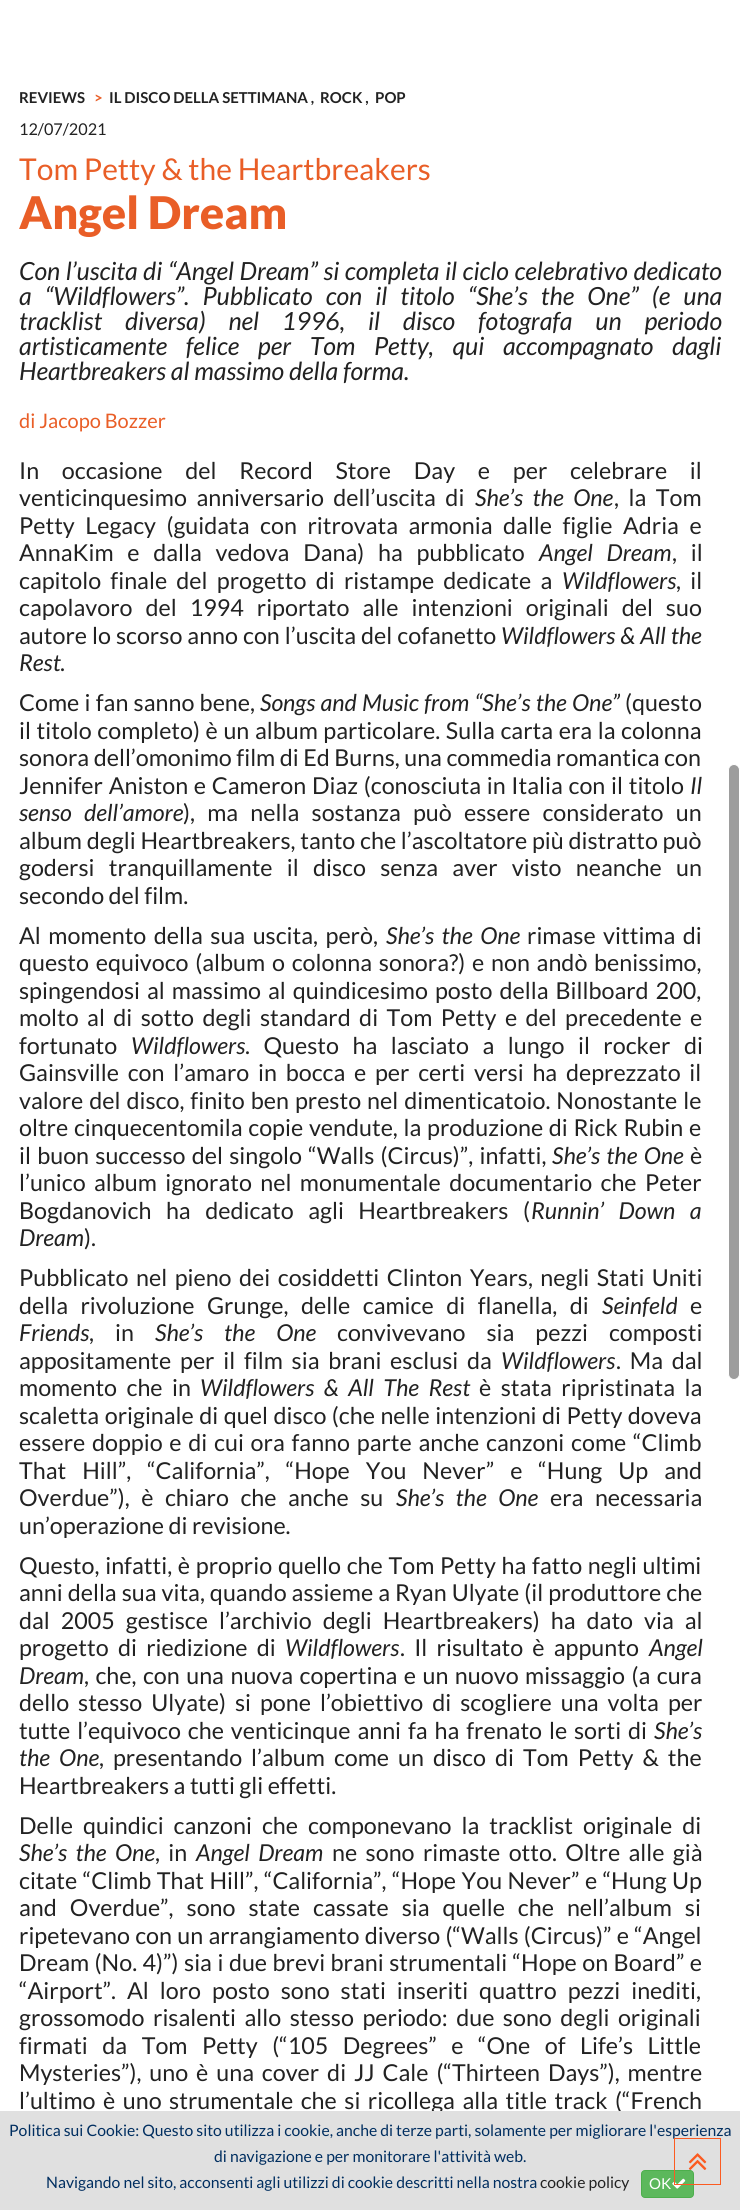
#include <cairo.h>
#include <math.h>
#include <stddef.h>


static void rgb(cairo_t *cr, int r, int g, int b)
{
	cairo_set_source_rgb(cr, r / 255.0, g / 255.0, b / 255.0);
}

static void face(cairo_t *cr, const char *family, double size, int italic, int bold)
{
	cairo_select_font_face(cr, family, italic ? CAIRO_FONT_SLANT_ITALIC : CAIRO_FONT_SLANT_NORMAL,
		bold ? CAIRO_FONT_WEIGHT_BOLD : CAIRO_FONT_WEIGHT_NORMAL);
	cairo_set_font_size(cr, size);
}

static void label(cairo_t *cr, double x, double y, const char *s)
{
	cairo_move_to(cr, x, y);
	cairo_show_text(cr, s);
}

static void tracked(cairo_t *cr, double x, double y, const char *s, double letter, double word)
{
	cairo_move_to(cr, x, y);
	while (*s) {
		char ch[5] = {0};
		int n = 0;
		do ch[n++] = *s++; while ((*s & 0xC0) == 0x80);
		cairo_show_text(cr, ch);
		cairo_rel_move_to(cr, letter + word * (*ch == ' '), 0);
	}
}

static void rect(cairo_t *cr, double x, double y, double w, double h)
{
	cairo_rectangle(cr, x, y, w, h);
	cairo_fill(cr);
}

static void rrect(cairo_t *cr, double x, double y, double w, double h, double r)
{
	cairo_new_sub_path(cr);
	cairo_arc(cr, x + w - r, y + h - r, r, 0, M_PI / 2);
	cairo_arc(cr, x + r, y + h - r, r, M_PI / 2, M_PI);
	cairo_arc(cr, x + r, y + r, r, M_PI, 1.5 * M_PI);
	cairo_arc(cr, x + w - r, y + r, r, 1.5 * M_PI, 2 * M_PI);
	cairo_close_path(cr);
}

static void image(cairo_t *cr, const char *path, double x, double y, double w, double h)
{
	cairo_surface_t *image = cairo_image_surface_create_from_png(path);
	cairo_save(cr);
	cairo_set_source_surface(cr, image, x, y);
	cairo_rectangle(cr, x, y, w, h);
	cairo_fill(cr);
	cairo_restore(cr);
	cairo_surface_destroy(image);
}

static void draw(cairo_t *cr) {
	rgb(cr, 255, 255, 255);
	cairo_paint(cr);
	face(cr, "Lato", 15, 0, 1);
	rgb(cr, 34, 34, 34);
	label(cr, 19, 103, "REVIEWS");
	rgb(cr, 233, 94, 39);
	label(cr, 94, 103, ">");
	rgb(cr, 34, 34, 34);
	label(cr, 109, 103, "IL DISCO DELLA SETTIMANA ,");
	label(cr, 320, 103, "ROCK ,");
	label(cr, 375, 103, "POP");
	face(cr, "Lato", 16.25, 0, 0);
	label(cr, 19, 135, "12/07/2021");
	face(cr, "Lato", 30, 0, 0);
	rgb(cr, 233, 94, 39);
	label(cr, 19, 180, "Tom Petty & the Heartbreakers");
	face(cr, "Lato Black", 45, 0, 0);
	label(cr, 19, 229, "Angel Dream");
	face(cr, "Lato", 25, 1, 0);
	rgb(cr, 34, 34, 34);
	tracked(cr, 19, 280, "Con l’uscita di “Angel Dream” si completa il ciclo celebrativo dedicato", 0, 0.75);
	tracked(cr, 19, 305, "a “Wildflowers”. Pubblicato con il titolo “She’s the One” (e una", 0, 8.25);
	tracked(cr, 19, 330, "tracklist diversa) nel 1996, il disco fotografa un periodo", 0, 18);
	tracked(cr, 19, 355, "artisticamente felice per Tom Petty, qui accompagnato dagli", 0, 13.75);
	label(cr, 19, 380, "Heartbreakers al massimo della forma.");
	face(cr, "Lato", 20, 0, 0);
	rgb(cr, 233, 94, 39);
	label(cr, 19, 428, "di Jacopo Bozzer");
	face(cr, "Lato", 23.3, 0, 0);
	rgb(cr, 34, 34, 34);
	tracked(cr, 19, 479, "In occasione del Record Store Day e per celebrare il", 0, 18.25);
	tracked(cr, 19, 506, "venticinquesimo anniversario dell’uscita di", 0, 5);
	face(cr, "Lato", 23.3, 1, 0);
	tracked(cr, 475, 506, "She’s the One", 0, 5);
	face(cr, "Lato", 23.3, 0, 0);
	tracked(cr, 614, 506, ", la Tom", 0, 5);
	tracked(cr, 19, 534, "Petty Legacy (guidata con ritrovata armonia dalle figlie Adria e", 0, 6);
	tracked(cr, 19, 561, "AnnaKim e dalla vedova Dana) ha pubblicato", 0, 9.25);
	face(cr, "Lato", 23.3, 1, 0);
	tracked(cr, 539, 561, "Angel Dream", 0, 9.25);
	face(cr, "Lato", 23.3, 0, 0);
	tracked(cr, 672, 561, ", il", 0, 9.25);
	tracked(cr, 19, 589, "capitolo finale del progetto di ristampe dedicate a", 0, 4.75);
	face(cr, "Lato", 23.3, 1, 0);
	label(cr, 562, 589, "Wildflowers");
	face(cr, "Lato", 23.3, 0, 0);
	tracked(cr, 676, 589, ", il", 0, 4.75);
	tracked(cr, 19, 616, "capolavoro del 1994 riportato alle intenzioni originali del suo", 0, 8.5);
	tracked(cr, 19, 644, "autore lo scorso anno con l’uscita del cofanetto", 0, 0.5);
	face(cr, "Lato", 23.3, 1, 0);
	tracked(cr, 501, 644, "Wildflowers & All the", 0, 0.5);
	label(cr, 19, 671, "Rest");
	face(cr, "Lato", 23.3, 0, 0);
	label(cr, 60, 671, ".");
	tracked(cr, 19, 711, "Come i fan sanno bene,", 0, 0.75);
	face(cr, "Lato", 23.3, 1, 0);
	tracked(cr, 260, 711, "Songs and Music from “She’s the One”", 0, 0.75);
	face(cr, "Lato", 23.3, 0, 0);
	label(cr, 625, 711, "(questo");
	tracked(cr, 19, 739, "il titolo completo) è un album particolare. Sulla carta era la colonna", 0, 1.1);
	label(cr, 19, 766, "sonora dell’omonimo film di Ed Burns, una commedia romantica con");
	tracked(cr, 19, 794, "Jennifer Aniston e Cameron Diaz (conosciuta in Italia con il titolo", 0, 1.25);
	face(cr, "Lato", 23.3, 1, 0);
	label(cr, 690, 794, "Il");
	tracked(cr, 19, 821, "senso dell’amore", 0, 7.75);
	face(cr, "Lato", 23.3, 0, 0);
	tracked(cr, 183, 821, "), ma nella sostanza può essere considerato un", 0, 7.75);
	tracked(cr, 19, 849, "album degli Heartbreakers, tanto che l’ascoltatore più distratto può", 0, 0.25);
	tracked(cr, 19, 876, "godersi tranquillamente il disco senza aver visto neanche un", 0, 9.75);
	label(cr, 19, 904, "secondo del film.");
	tracked(cr, 19, 944, "Al momento della sua uscita, però,", 0, 3);
	face(cr, "Lato", 23.3, 1, 0);
	tracked(cr, 386, 944, "She’s the One", 0, 3);
	face(cr, "Lato", 23.3, 0, 0);
	tracked(cr, 527, 944, "rimase vittima di", 0, 3);
	tracked(cr, 19, 971, "questo equivoco (album o colonna sonora?) e non andò benissimo,", 0, 2.25);
	tracked(cr, 19, 999, "spingendosi al massimo al quindicesimo posto della Billboard 200,", 0, 2.5);
	tracked(cr, 19, 1026, "molto al di sotto degli standard di Tom Petty e del precedente e", 0, 3.9);
	label(cr, 19, 1054, "fortunato");
	face(cr, "Lato", 23.3, 1, 0);
	label(cr, 131, 1054, "Wildflowers");
	face(cr, "Lato", 23.3, 0, 0);
	tracked(cr, 245, 1054, ". Questo ha lasciato a lungo il rocker di", 0, 9);
	tracked(cr, 19, 1081, "Gainsville con l’amaro in bocca e per certi versi ha deprezzato il", 0, 4.25);
	tracked(cr, 19, 1109, "valore del disco, finito ben presto nel dimenticatoio. Nonostante le", 0, 1.5);
	tracked(cr, 19, 1136, "oltre cinquecentomila copie vendute, la produzione di Rick Rubin e", 0, 1.25);
	tracked(cr, 19, 1164, "il buon successo del singolo “Walls (Circus)”, infatti,", 0, 1.75);
	face(cr, "Lato", 23.3, 1, 0);
	tracked(cr, 552, 1164, "She’s the One", 0, 1.75);
	face(cr, "Lato", 23.3, 0, 0);
	label(cr, 690, 1164, "è");
	tracked(cr, 19, 1191, "l’unico album ignorato nel monumentale documentario che Peter", 0, 3.9);
	tracked(cr, 19, 1219, "Bogdanovich ha dedicato agli Heartbreakers (", 0, 10);
	face(cr, "Lato", 23.3, 1, 0);
	tracked(cr, 531, 1219, "Runnin’ Down a", 0, 10);
	label(cr, 19, 1246, "Dream");
	face(cr, "Lato", 23.3, 0, 0);
	label(cr, 84, 1246, ").");
	tracked(cr, 19, 1286, "Pubblicato nel pieno dei cosiddetti Clinton Years, negli Stati Uniti", 0, 3);
	tracked(cr, 19, 1314, "della rivoluzione Grunge, delle camice di flanella, di", 0, 8);
	face(cr, "Lato", 23.3, 1, 0);
	label(cr, 602, 1314, "Seinfeld");
	face(cr, "Lato", 23.3, 0, 0);
	label(cr, 690, 1314, "e");
	face(cr, "Lato", 23.3, 1, 0);
	label(cr, 19, 1341, "Friends");
	face(cr, "Lato", 23.3, 0, 0);
	tracked(cr, 89, 1341, ", in", 0, 16.5);
	face(cr, "Lato", 23.3, 1, 0);
	tracked(cr, 155, 1341, "She’s the One", 0, 16.5);
	face(cr, "Lato", 23.3, 0, 0);
	tracked(cr, 337, 1341, "convivevano sia pezzi composti", 0, 16.5);
	tracked(cr, 19, 1369, "appositamente per il film sia brani esclusi da", 0, 4.25);
	face(cr, "Lato", 23.3, 1, 0);
	label(cr, 501, 1369, "Wildflowers");
	face(cr, "Lato", 23.3, 0, 0);
	tracked(cr, 616, 1369, ". Ma dal", 0, 4.25);
	tracked(cr, 19, 1396, "momento che in", 0, 5);
	face(cr, "Lato", 23.3, 1, 0);
	tracked(cr, 200, 1396, "Wildflowers & All The Rest", 0, 5);
	face(cr, "Lato", 23.3, 0, 0);
	tracked(cr, 479, 1396, "è stata ripristinata la", 0, 5);
	tracked(cr, 19, 1424, "scaletta originale di quel disco (che nelle intenzioni di Petty doveva", 0, 1);
	tracked(cr, 19, 1451, "essere doppio e di cui ora fanno parte anche canzoni come “Climb", 0, 2.25);
	tracked(cr, 19, 1479, "That Hill”, “California”, “Hope You Never” e “Hung Up and", 0, 11.5);
	tracked(cr, 19, 1506, "Overdue”), è chiaro che anche su", 0, 7);
	face(cr, "Lato", 23.3, 1, 0);
	tracked(cr, 396, 1506, "She’s the One", 0, 7);
	face(cr, "Lato", 23.3, 0, 0);
	tracked(cr, 550, 1506, "era necessaria", 0, 7);
	label(cr, 19, 1534, "un’operazione di revisione.");
	tracked(cr, 19, 1574, "Questo, infatti, è proprio quello che Tom Petty ha fatto negli ultimi", 0, 1.25);
	tracked(cr, 19, 1601, "anni della sua vita, quando assieme a Ryan Ulyate (il produttore che", 0, 0.5);
	tracked(cr, 19, 1629, "dal 2005 gestisce l’archivio degli Heartbreakers) ha dato via al", 0, 6.5);
	tracked(cr, 19, 1656, "progetto di riedizione di", 0, 4.75);
	face(cr, "Lato", 23.3, 1, 0);
	label(cr, 285, 1656, "Wildflowers");
	face(cr, "Lato", 23.3, 0, 0);
	tracked(cr, 400, 1656, ". Il risultato è appunto", 0, 4.75);
	face(cr, "Lato", 23.3, 1, 0);
	label(cr, 649, 1656, "Angel");
	label(cr, 19, 1684, "Dream");
	face(cr, "Lato", 23.3, 0, 0);
	tracked(cr, 84, 1684, ", che, con una nuova copertina e un nuovo missaggio (a cura", 0, 2);
	tracked(cr, 19, 1711, "dello stesso Ulyate) si pone l’obiettivo di scogliere una volta per", 0, 4.5);
	tracked(cr, 19, 1739, "tutte l’equivoco che venticinque anni fa ha frenato le sorti di", 0, 2.4);
	face(cr, "Lato", 23.3, 1, 0);
	label(cr, 654, 1739, "She’s");
	tracked(cr, 19, 1766, "the One", 0, 4.5);
	face(cr, "Lato", 23.3, 0, 0);
	tracked(cr, 99, 1766, ", presentando l’album come un disco di Tom Petty & the", 0, 4.5);
	label(cr, 19, 1794, "Heartbreakers a tutti gli effetti.");
	tracked(cr, 19, 1834, "Delle quindici canzoni che componevano la tracklist originale di", 0, 5.5);
	face(cr, "Lato", 23.3, 1, 0);
	tracked(cr, 19, 1861, "She’s the One", 0, 3.9);
	face(cr, "Lato", 23.3, 0, 0);
	tracked(cr, 155, 1861, ", in", 0, 3.9);
	face(cr, "Lato", 23.3, 1, 0);
	tracked(cr, 196, 1861, "Angel Dream", 0, 3.9);
	face(cr, "Lato", 23.3, 0, 0);
	tracked(cr, 332, 1861, "ne sono rimaste otto. Oltre alle già", 0, 3.9);
	tracked(cr, 19, 1889, "citate “Climb That Hill”, “California”, “Hope You Never” e “Hung Up", 0, 1);
	tracked(cr, 19, 1916, "and Overdue”, sono state cassate sia quelle che nell’album si", 0, 8.5);
	tracked(cr, 19, 1944, "ripetevano con un arrangiamento diverso (“Walls (Circus)” e “Angel", 0, 0.75);
	tracked(cr, 19, 1971, "Dream (No. 4)”) sia i due brevi brani strumentali “Hope on Board” e", 0, 1);
	tracked(cr, 19, 1999, "“Airport”. Al loro posto sono stati inseriti quattro pezzi inediti,", 0, 6.5);
	tracked(cr, 19, 2026, "grossomodo risalenti allo stesso periodo: due sono degli originali", 0, 4);
	tracked(cr, 19, 2054, "firmati da Tom Petty (“105 Degrees” e “One of Life’s Little", 0, 10);
	tracked(cr, 19, 2081, "Mysteries”), uno è una cover di JJ Cale (“Thirteen Days”), mentre", 0, 3.4);
	tracked(cr, 19, 2109, "l’ultimo è uno strumentale che si ricollega alla title track (“French", 0, 3);
	rgb(cr, 157, 157, 157);
	rrect(cr, 728.5, 764.5, 11, 615, 5.5);
	cairo_fill_preserve(cr);
	rgb(cr, 255, 255, 255);
	cairo_set_line_width(cr, 1);
	cairo_stroke(cr);
	rgb(cr, 224, 224, 224);
	rect(cr, 0, 2111, 740, 99);
	face(cr, "Lato", 15.75, 0, 0);
	rgb(cr, 0, 46, 96);
	label(cr, 9, 2136, "Politica sui Cookie: Questo sito utilizza i cookie, anche di terze parti, solamente per migliorare l'esperienza");
	label(cr, 214, 2162, "di navigazione e per monitorare l'attività web.");
	label(cr, 46, 2188, "Navigando nel sito, acconsenti agli utilizzi di cookie descritti nella nostra");
	rgb(cr, 34, 34, 34);
	label(cr, 540, 2188, "cookie policy");
	rgb(cr, 92, 184, 92);
	rrect(cr, 641.5, 2170.5, 52, 27, 3.5);
	cairo_fill_preserve(cr);
	rgb(cr, 76, 174, 76);
	cairo_stroke(cr);
	face(cr, "Lato", 15, 0, 0);
	rgb(cr, 255, 255, 255);
	label(cr, 649, 2189, "OK");
	image(cr, "image0.png", 672, 2178, 14, 11);
	cairo_rectangle(cr, 674.5, 2138.5, 46, 46);
	rgb(cr, 251, 91, 33);
	cairo_stroke(cr);
	image(cr, "image1.png", 688, 2153, 19, 17);
}

int main(void) {
	cairo_surface_t *surface = cairo_image_surface_create(CAIRO_FORMAT_RGB24, 740, 2210);
	cairo_t *cr = cairo_create(surface);
	cairo_font_options_t *options = cairo_font_options_create();
	cairo_font_options_set_hint_metrics(options, CAIRO_HINT_METRICS_OFF);
	cairo_font_options_set_hint_style(options, CAIRO_HINT_STYLE_NONE);
	cairo_set_font_options(cr, options);
	cairo_set_miter_limit(cr, 4);
	draw(cr);
	cairo_surface_write_to_png(surface, "render.png");
	cairo_font_options_destroy(options);
	cairo_destroy(cr);
	cairo_surface_destroy(surface);
	return 0;
}
